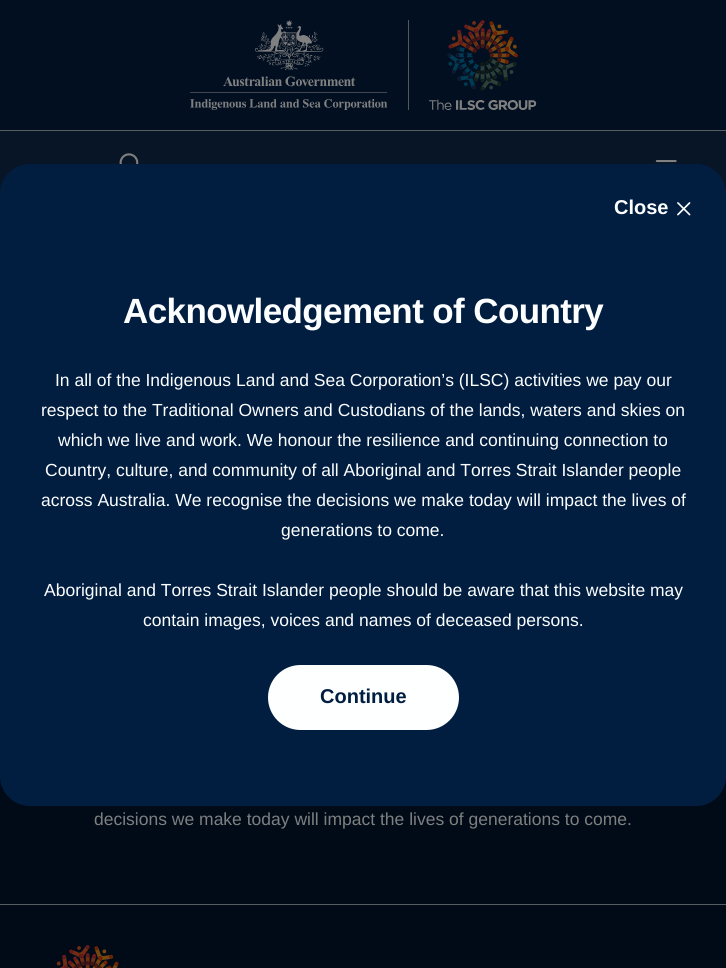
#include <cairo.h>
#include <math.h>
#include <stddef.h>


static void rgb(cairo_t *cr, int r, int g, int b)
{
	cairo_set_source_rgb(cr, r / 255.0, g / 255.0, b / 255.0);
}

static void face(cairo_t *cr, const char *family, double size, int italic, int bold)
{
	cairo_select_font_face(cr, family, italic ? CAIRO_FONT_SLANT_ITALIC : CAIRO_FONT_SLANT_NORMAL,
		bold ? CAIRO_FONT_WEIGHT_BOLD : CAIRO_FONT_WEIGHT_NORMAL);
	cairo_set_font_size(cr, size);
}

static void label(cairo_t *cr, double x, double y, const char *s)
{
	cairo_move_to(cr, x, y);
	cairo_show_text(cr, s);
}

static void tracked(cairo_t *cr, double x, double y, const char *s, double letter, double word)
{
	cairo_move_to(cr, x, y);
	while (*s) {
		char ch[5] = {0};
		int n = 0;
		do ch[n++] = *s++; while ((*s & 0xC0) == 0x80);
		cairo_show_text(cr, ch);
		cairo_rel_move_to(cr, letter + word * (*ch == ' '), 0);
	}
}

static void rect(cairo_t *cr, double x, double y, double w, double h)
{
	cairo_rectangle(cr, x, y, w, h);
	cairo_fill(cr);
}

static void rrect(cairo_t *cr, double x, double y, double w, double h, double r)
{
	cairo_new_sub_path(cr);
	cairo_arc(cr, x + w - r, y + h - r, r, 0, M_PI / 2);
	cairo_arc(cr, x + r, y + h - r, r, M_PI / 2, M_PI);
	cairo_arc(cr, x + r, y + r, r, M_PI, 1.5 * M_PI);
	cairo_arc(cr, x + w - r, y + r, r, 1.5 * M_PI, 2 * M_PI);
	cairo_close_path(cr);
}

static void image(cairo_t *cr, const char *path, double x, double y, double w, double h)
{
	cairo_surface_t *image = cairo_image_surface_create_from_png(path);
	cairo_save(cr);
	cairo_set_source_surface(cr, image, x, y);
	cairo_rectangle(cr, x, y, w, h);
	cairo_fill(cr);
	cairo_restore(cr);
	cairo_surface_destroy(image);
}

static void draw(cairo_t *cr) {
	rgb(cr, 1, 15, 33);
	cairo_paint(cr);
	rgb(cr, 7, 21, 38);
	rect(cr, 0, 131, 726, 63);
	rgb(cr, 0, 11, 23);
	rect(cr, 0, 776, 726, 128);
	rgb(cr, 1, 30, 65);
	rrect(cr, 0, 164, 726, 642, 30);
	cairo_fill(cr);
	face(cr, "Liberation Sans", 20, 0, 1);
	rgb(cr, 253, 254, 255);
	label(cr, 614, 214, "Close");
	image(cr, "image0.png", 677, 202, 14, 14);
	face(cr, "Liberation Sans", 35, 0, 1);
	tracked(cr, 123, 323, "Acknowledgement of Country", -0.6, 0);
	face(cr, "Liberation Sans", 17.5, 0, 0);
	label(cr, 55, 386, "In all of the Indigenous Land and Sea Corporation’s (ILSC) activities we pay our");
	label(cr, 41, 416, "respect to the Traditional Owners and Custodians of the lands, waters and skies on");
	label(cr, 58, 446, "which we live and work. We honour the resilience and continuing connection to");
	label(cr, 45, 476, "Country, culture, and community of all Aboriginal and Torres Strait Islander people");
	label(cr, 41, 506, "across Australia. We recognise the decisions we make today will impact the lives of");
	label(cr, 281, 536, "generations to come.");
	label(cr, 44, 596, "Aboriginal and Torres Strait Islander people should be aware that this website may");
	label(cr, 143, 626, "contain images, voices and names of deceased persons.");
	rgb(cr, 254, 255, 255);
	rrect(cr, 269.5, 666.5, 188, 62, 31);
	cairo_fill_preserve(cr);
	cairo_set_line_width(cr, 3);
	cairo_stroke(cr);
	face(cr, "Liberation Sans", 20, 0, 1);
	rgb(cr, 1, 30, 65);
	label(cr, 320, 703, "Continue");
	image(cr, "image1.png", 190, 20, 198, 90);
	rgb(cr, 83, 88, 94);
	rect(cr, 408, 20, 1, 90);
	image(cr, "image2.png", 429, 20, 108, 90);
	rgb(cr, 87, 93, 96);
	rect(cr, 0, 130, 726, 1);
	image(cr, "image3.png", 119, 153, 20, 11);
	image(cr, "image4.png", 655, 160, 22, 3);
	rect(cr, 0, 904, 726, 1);
	face(cr, "Liberation Sans", 17.5, 0, 0);
	rgb(cr, 126, 127, 128);
	label(cr, 94, 825, "decisions we make today will impact the lives of generations to come.");
	rgb(cr, 0, 11, 23);
	rect(cr, 0, 905, 726, 63);
	image(cr, "image5.png", 56, 945, 63, 23);
}

int main(void) {
	cairo_surface_t *surface = cairo_image_surface_create(CAIRO_FORMAT_RGB24, 726, 968);
	cairo_t *cr = cairo_create(surface);
	cairo_font_options_t *options = cairo_font_options_create();
	cairo_font_options_set_hint_metrics(options, CAIRO_HINT_METRICS_OFF);
	cairo_font_options_set_hint_style(options, CAIRO_HINT_STYLE_NONE);
	cairo_set_font_options(cr, options);
	cairo_set_miter_limit(cr, 4);
	draw(cr);
	cairo_surface_write_to_png(surface, "render.png");
	cairo_font_options_destroy(options);
	cairo_destroy(cr);
	cairo_surface_destroy(surface);
	return 0;
}
